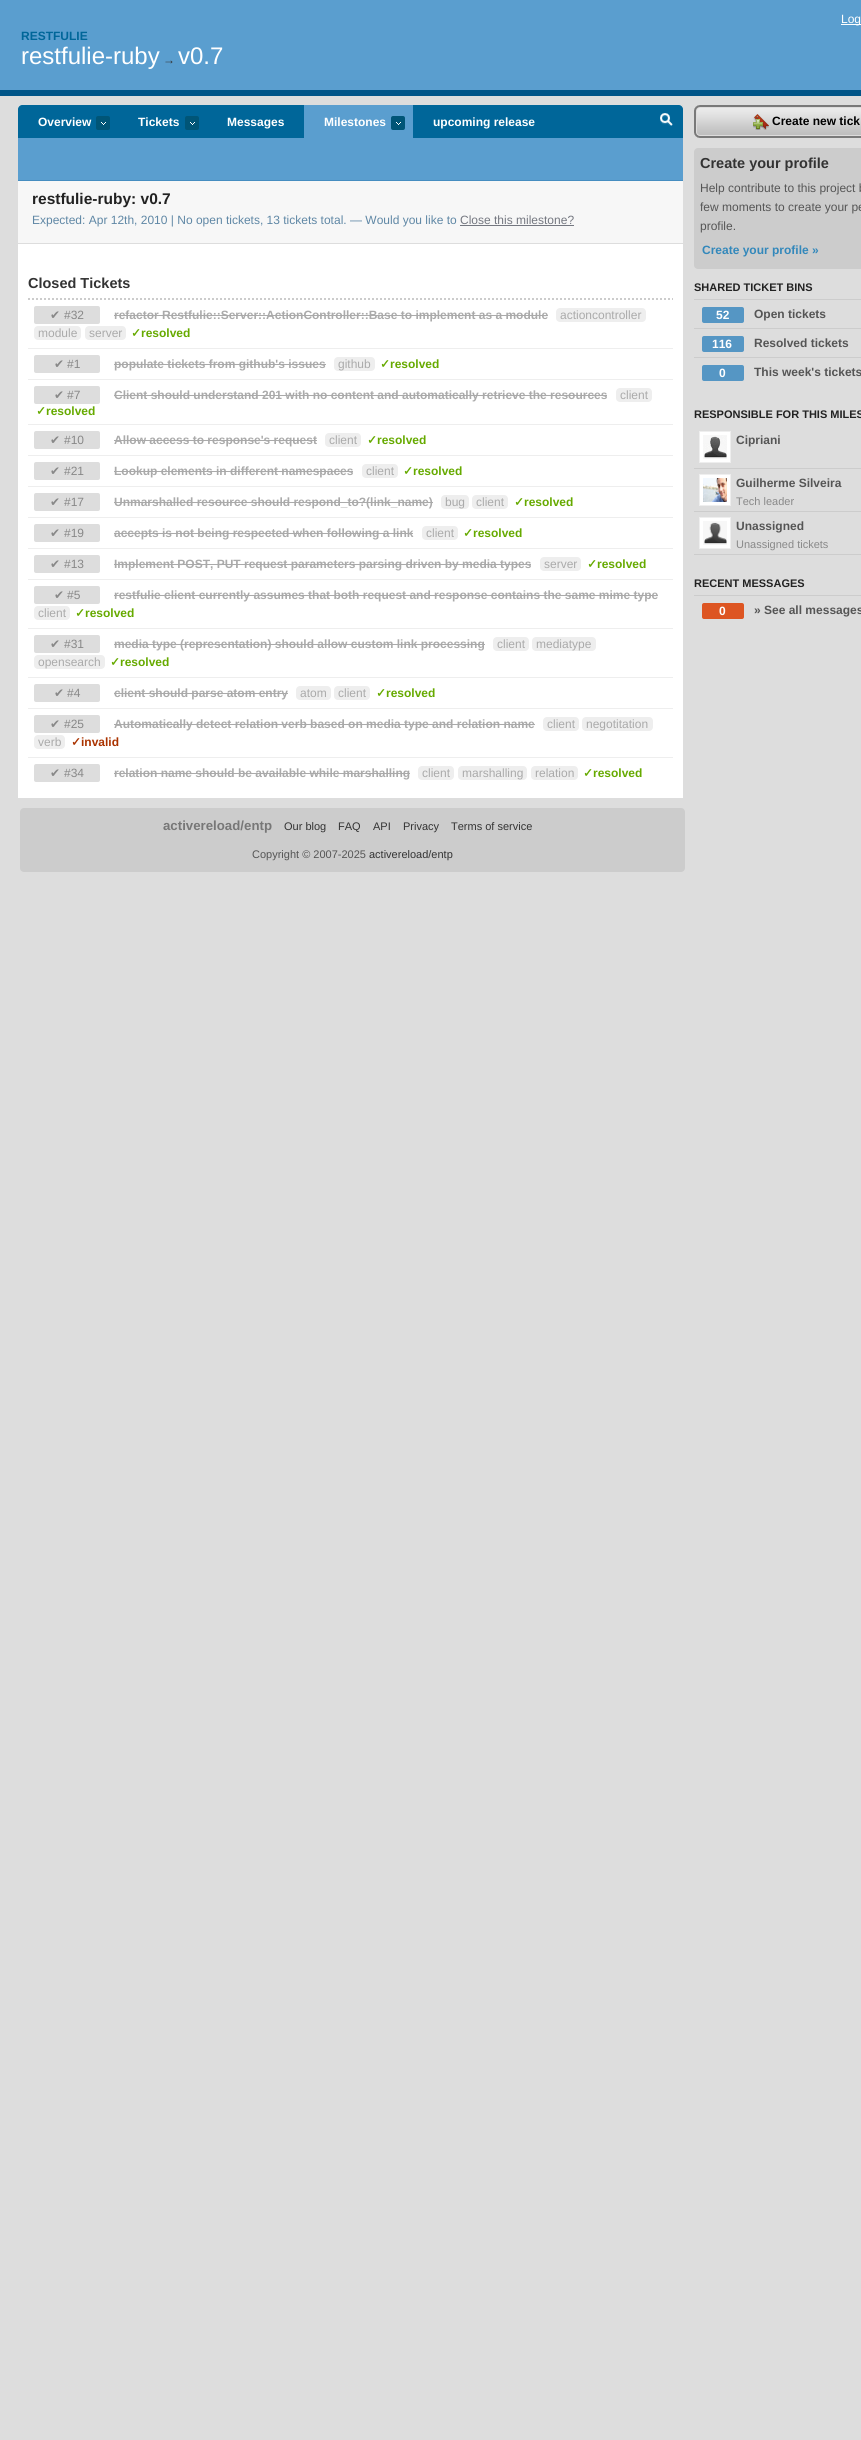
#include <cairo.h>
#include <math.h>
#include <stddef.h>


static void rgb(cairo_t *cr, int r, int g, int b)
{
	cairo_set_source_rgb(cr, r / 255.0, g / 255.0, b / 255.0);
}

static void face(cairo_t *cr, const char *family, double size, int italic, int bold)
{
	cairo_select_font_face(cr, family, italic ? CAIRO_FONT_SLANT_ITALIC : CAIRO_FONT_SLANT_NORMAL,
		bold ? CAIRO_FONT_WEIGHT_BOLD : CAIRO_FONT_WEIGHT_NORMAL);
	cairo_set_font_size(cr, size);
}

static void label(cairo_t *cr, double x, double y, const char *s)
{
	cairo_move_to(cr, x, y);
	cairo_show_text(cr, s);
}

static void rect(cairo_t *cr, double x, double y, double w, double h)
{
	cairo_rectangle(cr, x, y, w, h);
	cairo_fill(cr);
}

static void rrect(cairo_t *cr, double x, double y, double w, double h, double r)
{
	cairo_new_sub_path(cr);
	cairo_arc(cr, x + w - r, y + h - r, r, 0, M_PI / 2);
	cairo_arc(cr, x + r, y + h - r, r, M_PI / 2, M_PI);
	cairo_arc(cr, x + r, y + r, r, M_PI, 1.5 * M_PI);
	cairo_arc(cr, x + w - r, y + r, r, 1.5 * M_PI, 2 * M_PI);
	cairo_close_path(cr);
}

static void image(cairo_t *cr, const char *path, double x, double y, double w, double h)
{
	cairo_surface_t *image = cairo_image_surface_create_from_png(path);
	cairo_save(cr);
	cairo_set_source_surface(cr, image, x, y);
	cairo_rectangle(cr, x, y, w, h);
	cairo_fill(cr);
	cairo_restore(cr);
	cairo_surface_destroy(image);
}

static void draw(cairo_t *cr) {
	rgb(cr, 221, 221, 221);
	cairo_paint(cr);
	rgb(cr, 90, 158, 207);
	rect(cr, 0, 0, 861, 90);
	rgb(cr, 0, 85, 136);
	rect(cr, 0, 90, 861, 6);
	rgb(cr, 255, 255, 255);
	rect(cr, 841, 24, 20, 1);
	face(cr, "Liberation Sans", 12, 0, 0);
	label(cr, 841, 23, "Log");
	face(cr, "Liberation Sans", 12, 0, 1);
	rgb(cr, 0, 102, 153);
	label(cr, 21, 40, "RESTFULIE");
	face(cr, "Liberation Sans", 24, 0, 0);
	rgb(cr, 255, 255, 255);
	label(cr, 21, 64, "restfulie-ruby");
	face(cr, "Liberation Sans", 12, 0, 1);
	rgb(cr, 51, 51, 51);
	label(cr, 163, 64, "→");
	face(cr, "Liberation Sans", 24, 0, 0);
	rgb(cr, 255, 255, 255);
	label(cr, 178, 64, "v0.7");
	cairo_new_path(cr);
	cairo_move_to(cr, 22, 105);
	cairo_line_to(cr, 679, 105);
	cairo_curve_to(cr, 681, 105, 683, 107, 683, 109);
	cairo_line_to(cr, 683, 798);
	cairo_line_to(cr, 18, 798);
	cairo_line_to(cr, 18, 109);
	cairo_curve_to(cr, 18, 107, 20, 105, 22, 105);
	cairo_close_path(cr);
	cairo_fill(cr);
	rgb(cr, 0, 102, 153);
	cairo_new_path(cr);
	cairo_move_to(cr, 22, 105);
	cairo_line_to(cr, 679, 105);
	cairo_curve_to(cr, 681, 105, 683, 107, 683, 109);
	cairo_line_to(cr, 683, 138);
	cairo_line_to(cr, 18, 138);
	cairo_line_to(cr, 18, 109);
	cairo_curve_to(cr, 18, 107, 20, 105, 22, 105);
	cairo_close_path(cr);
	cairo_fill(cr);
	face(cr, "Liberation Sans", 12, 0, 1);
	rgb(cr, 255, 255, 255);
	label(cr, 38, 126, "Overview");
	rgb(cr, 0, 85, 119);
	rrect(cr, 96, 116, 14, 14, 2);
	cairo_fill(cr);
	image(cr, "image0.png", 101, 122, 5, 3);
	rgb(cr, 255, 255, 255);
	label(cr, 138, 126, "Tickets");
	rgb(cr, 0, 85, 119);
	rrect(cr, 185, 116, 14, 14, 2);
	cairo_fill(cr);
	image(cr, "image0.png", 190, 122, 5, 3);
	rgb(cr, 255, 255, 255);
	label(cr, 227, 126, "Messages");
	rgb(cr, 90, 158, 207);
	rect(cr, 304, 105, 109, 33);
	rgb(cr, 255, 255, 255);
	label(cr, 324, 126, "Milestones");
	rgb(cr, 0, 85, 119);
	rrect(cr, 391, 116, 14, 14, 2);
	cairo_fill(cr);
	image(cr, "image0.png", 396, 122, 5, 3);
	rgb(cr, 255, 255, 255);
	label(cr, 433, 126, "upcoming release");
	image(cr, "image1.png", 681, 105, 2, 2);
	image(cr, "image2.png", 660, 113, 13, 13);
	rgb(cr, 90, 158, 207);
	rect(cr, 18, 138, 665, 42);
	rgb(cr, 70, 141, 192);
	rect(cr, 18, 180, 665, 1);
	rgb(cr, 247, 247, 247);
	rect(cr, 18, 181, 665, 62);
	rgb(cr, 221, 221, 221);
	rect(cr, 18, 243, 665, 1);
	face(cr, "Liberation Sans", 15.5, 0, 1);
	rgb(cr, 34, 34, 34);
	label(cr, 32, 204, "restfulie-ruby: v0.7");
	face(cr, "Liberation Sans", 12, 0, 0);
	rgb(cr, 95, 135, 165);
	label(cr, 32, 224, "Expected: Apr 12th, 2010 | No open tickets, 13 tickets total. — Would you like to");
	rgb(cr, 116, 119, 128);
	label(cr, 460, 224, "Close this milestone?");
	rect(cr, 460, 225, 114, 1);
	face(cr, "Liberation Sans", 14.5, 0, 1);
	rgb(cr, 51, 51, 51);
	label(cr, 28, 288, "Closed Tickets");
	cairo_new_path(cr);
	cairo_move_to(cr, 28, 299);
	cairo_line_to(cr, 673, 299);
	rgb(cr, 204, 204, 204);
	cairo_set_dash(cr, (double[]){2, 2}, 2, 0);
	cairo_stroke(cr);
	rgb(cr, 221, 221, 221);
	rrect(cr, 34, 306, 66, 18, 2);
	cairo_fill(cr);
	face(cr, "DejaVu Sans", 12, 0, 0);
	rgb(cr, 136, 136, 136);
	label(cr, 50, 319, "✔");
	face(cr, "Liberation Sans", 12, 0, 0);
	label(cr, 64, 319, "#32");
	face(cr, "Liberation Sans", 12, 0, 1);
	rgb(cr, 170, 170, 170);
	label(cr, 114, 319, "refactor Restfulie::Server::ActionController::Base to implement as a module");
	rect(cr, 114, 315, 434, 1);
	rgb(cr, 238, 238, 238);
	rrect(cr, 556, 308, 90, 14, 4);
	cairo_fill(cr);
	face(cr, "Liberation Sans", 12, 0, 0);
	rgb(cr, 170, 170, 170);
	label(cr, 560, 319, "actioncontroller");
	rgb(cr, 238, 238, 238);
	rrect(cr, 34, 326, 47, 14, 4);
	cairo_fill(cr);
	rgb(cr, 170, 170, 170);
	label(cr, 38, 337, "module");
	rgb(cr, 238, 238, 238);
	rrect(cr, 85, 326, 41, 14, 4);
	cairo_fill(cr);
	rgb(cr, 170, 170, 170);
	label(cr, 89, 337, "server");
	face(cr, "DejaVu Sans", 12, 0, 1);
	rgb(cr, 102, 170, 0);
	label(cr, 131, 337, "✓");
	face(cr, "Liberation Sans", 12, 0, 1);
	label(cr, 141, 337, "resolved");
	rgb(cr, 238, 238, 238);
	rect(cr, 28, 348, 645, 1);
	rgb(cr, 221, 221, 221);
	rrect(cr, 34, 355, 66, 18, 2);
	cairo_fill(cr);
	face(cr, "DejaVu Sans", 12, 0, 0);
	rgb(cr, 136, 136, 136);
	label(cr, 54, 368, "✔");
	face(cr, "Liberation Sans", 12, 0, 0);
	label(cr, 67, 368, "#1");
	face(cr, "Liberation Sans", 12, 0, 1);
	rgb(cr, 170, 170, 170);
	label(cr, 114, 368, "populate tickets from github's issues");
	rect(cr, 114, 364, 212, 1);
	rgb(cr, 238, 238, 238);
	rrect(cr, 334, 357, 41, 14, 4);
	cairo_fill(cr);
	face(cr, "Liberation Sans", 12, 0, 0);
	rgb(cr, 170, 170, 170);
	label(cr, 338, 368, "github");
	face(cr, "DejaVu Sans", 12, 0, 1);
	rgb(cr, 102, 170, 0);
	label(cr, 380, 368, "✓");
	face(cr, "Liberation Sans", 12, 0, 1);
	label(cr, 390, 368, "resolved");
	rgb(cr, 238, 238, 238);
	rect(cr, 28, 379, 645, 1);
	rgb(cr, 221, 221, 221);
	rrect(cr, 34, 386, 66, 18, 2);
	cairo_fill(cr);
	face(cr, "DejaVu Sans", 12, 0, 0);
	rgb(cr, 136, 136, 136);
	label(cr, 54, 399, "✔");
	face(cr, "Liberation Sans", 12, 0, 0);
	label(cr, 67, 399, "#7");
	face(cr, "Liberation Sans", 12, 0, 1);
	rgb(cr, 170, 170, 170);
	label(cr, 114, 399, "Client should understand 201 with no content and automatically retrieve the resources");
	rect(cr, 114, 395, 493, 1);
	rgb(cr, 238, 238, 238);
	rrect(cr, 616, 388, 36, 14, 4);
	cairo_fill(cr);
	face(cr, "Liberation Sans", 12, 0, 0);
	rgb(cr, 170, 170, 170);
	label(cr, 620, 399, "client");
	face(cr, "DejaVu Sans", 12, 0, 1);
	rgb(cr, 102, 170, 0);
	label(cr, 36, 415, "✓");
	face(cr, "Liberation Sans", 12, 0, 1);
	label(cr, 46, 415, "resolved");
	rgb(cr, 238, 238, 238);
	rect(cr, 28, 424, 645, 1);
	rgb(cr, 221, 221, 221);
	rrect(cr, 34, 431, 66, 18, 2);
	cairo_fill(cr);
	face(cr, "DejaVu Sans", 12, 0, 0);
	rgb(cr, 136, 136, 136);
	label(cr, 50, 444, "✔");
	face(cr, "Liberation Sans", 12, 0, 0);
	label(cr, 64, 444, "#10");
	face(cr, "Liberation Sans", 12, 0, 1);
	rgb(cr, 170, 170, 170);
	label(cr, 114, 444, "Allow access to response's request");
	rect(cr, 114, 440, 203, 1);
	rgb(cr, 238, 238, 238);
	rrect(cr, 325, 433, 36, 14, 4);
	cairo_fill(cr);
	face(cr, "Liberation Sans", 12, 0, 0);
	rgb(cr, 170, 170, 170);
	label(cr, 329, 444, "client");
	face(cr, "DejaVu Sans", 12, 0, 1);
	rgb(cr, 102, 170, 0);
	label(cr, 367, 444, "✓");
	face(cr, "Liberation Sans", 12, 0, 1);
	label(cr, 377, 444, "resolved");
	rgb(cr, 238, 238, 238);
	rect(cr, 28, 455, 645, 1);
	rgb(cr, 221, 221, 221);
	rrect(cr, 34, 462, 66, 18, 2);
	cairo_fill(cr);
	face(cr, "DejaVu Sans", 12, 0, 0);
	rgb(cr, 136, 136, 136);
	label(cr, 50, 475, "✔");
	face(cr, "Liberation Sans", 12, 0, 0);
	label(cr, 64, 475, "#21");
	face(cr, "Liberation Sans", 12, 0, 1);
	rgb(cr, 170, 170, 170);
	label(cr, 114, 475, "Lookup elements in different namespaces");
	rect(cr, 114, 471, 239, 1);
	rgb(cr, 238, 238, 238);
	rrect(cr, 362, 464, 36, 14, 4);
	cairo_fill(cr);
	face(cr, "Liberation Sans", 12, 0, 0);
	rgb(cr, 170, 170, 170);
	label(cr, 366, 475, "client");
	face(cr, "DejaVu Sans", 12, 0, 1);
	rgb(cr, 102, 170, 0);
	label(cr, 403, 475, "✓");
	face(cr, "Liberation Sans", 12, 0, 1);
	label(cr, 413, 475, "resolved");
	rgb(cr, 238, 238, 238);
	rect(cr, 28, 486, 645, 1);
	rgb(cr, 221, 221, 221);
	rrect(cr, 34, 493, 66, 18, 2);
	cairo_fill(cr);
	face(cr, "DejaVu Sans", 12, 0, 0);
	rgb(cr, 136, 136, 136);
	label(cr, 50, 506, "✔");
	face(cr, "Liberation Sans", 12, 0, 0);
	label(cr, 64, 506, "#17");
	face(cr, "Liberation Sans", 12, 0, 1);
	rgb(cr, 170, 170, 170);
	label(cr, 114, 506, "Unmarshalled resource should respond_to?(link_name)");
	rect(cr, 114, 502, 319, 1);
	rgb(cr, 238, 238, 238);
	rrect(cr, 441, 495, 28, 14, 4);
	cairo_fill(cr);
	face(cr, "Liberation Sans", 12, 0, 0);
	rgb(cr, 170, 170, 170);
	label(cr, 445, 506, "bug");
	rgb(cr, 238, 238, 238);
	rrect(cr, 472, 495, 36, 14, 4);
	cairo_fill(cr);
	rgb(cr, 170, 170, 170);
	label(cr, 476, 506, "client");
	face(cr, "DejaVu Sans", 12, 0, 1);
	rgb(cr, 102, 170, 0);
	label(cr, 514, 506, "✓");
	face(cr, "Liberation Sans", 12, 0, 1);
	label(cr, 524, 506, "resolved");
	rgb(cr, 238, 238, 238);
	rect(cr, 28, 517, 645, 1);
	rgb(cr, 221, 221, 221);
	rrect(cr, 34, 524, 66, 18, 2);
	cairo_fill(cr);
	face(cr, "DejaVu Sans", 12, 0, 0);
	rgb(cr, 136, 136, 136);
	label(cr, 50, 537, "✔");
	face(cr, "Liberation Sans", 12, 0, 0);
	label(cr, 64, 537, "#19");
	face(cr, "Liberation Sans", 12, 0, 1);
	rgb(cr, 170, 170, 170);
	label(cr, 114, 537, "accepts is not being respected when following a link");
	rect(cr, 114, 533, 299, 1);
	rgb(cr, 238, 238, 238);
	rrect(cr, 422, 526, 36, 14, 4);
	cairo_fill(cr);
	face(cr, "Liberation Sans", 12, 0, 0);
	rgb(cr, 170, 170, 170);
	label(cr, 426, 537, "client");
	face(cr, "DejaVu Sans", 12, 0, 1);
	rgb(cr, 102, 170, 0);
	label(cr, 463, 537, "✓");
	face(cr, "Liberation Sans", 12, 0, 1);
	label(cr, 473, 537, "resolved");
	rgb(cr, 238, 238, 238);
	rect(cr, 28, 548, 645, 1);
	rgb(cr, 221, 221, 221);
	rrect(cr, 34, 555, 66, 18, 2);
	cairo_fill(cr);
	face(cr, "DejaVu Sans", 12, 0, 0);
	rgb(cr, 136, 136, 136);
	label(cr, 50, 568, "✔");
	face(cr, "Liberation Sans", 12, 0, 0);
	label(cr, 64, 568, "#13");
	face(cr, "Liberation Sans", 12, 0, 1);
	rgb(cr, 170, 170, 170);
	label(cr, 114, 568, "Implement POST, PUT request parameters parsing driven by media types");
	rect(cr, 114, 564, 417, 1);
	rgb(cr, 238, 238, 238);
	rrect(cr, 540, 557, 41, 14, 4);
	cairo_fill(cr);
	face(cr, "Liberation Sans", 12, 0, 0);
	rgb(cr, 170, 170, 170);
	label(cr, 544, 568, "server");
	face(cr, "DejaVu Sans", 12, 0, 1);
	rgb(cr, 102, 170, 0);
	label(cr, 587, 568, "✓");
	face(cr, "Liberation Sans", 12, 0, 1);
	label(cr, 597, 568, "resolved");
	rgb(cr, 238, 238, 238);
	rect(cr, 28, 579, 645, 1);
	rgb(cr, 221, 221, 221);
	rrect(cr, 34, 586, 66, 18, 2);
	cairo_fill(cr);
	face(cr, "DejaVu Sans", 12, 0, 0);
	rgb(cr, 136, 136, 136);
	label(cr, 54, 599, "✔");
	face(cr, "Liberation Sans", 12, 0, 0);
	label(cr, 67, 599, "#5");
	face(cr, "Liberation Sans", 12, 0, 1);
	rgb(cr, 170, 170, 170);
	label(cr, 114, 599, "restfulie client currently assumes that both request and response contains the same mime type");
	rect(cr, 114, 595, 544, 1);
	rgb(cr, 238, 238, 238);
	rrect(cr, 34, 606, 36, 14, 4);
	cairo_fill(cr);
	face(cr, "Liberation Sans", 12, 0, 0);
	rgb(cr, 170, 170, 170);
	label(cr, 38, 617, "client");
	face(cr, "DejaVu Sans", 12, 0, 1);
	rgb(cr, 102, 170, 0);
	label(cr, 75, 617, "✓");
	face(cr, "Liberation Sans", 12, 0, 1);
	label(cr, 85, 617, "resolved");
	rgb(cr, 238, 238, 238);
	rect(cr, 28, 628, 645, 1);
	rgb(cr, 221, 221, 221);
	rrect(cr, 34, 635, 66, 18, 2);
	cairo_fill(cr);
	face(cr, "DejaVu Sans", 12, 0, 0);
	rgb(cr, 136, 136, 136);
	label(cr, 50, 648, "✔");
	face(cr, "Liberation Sans", 12, 0, 0);
	label(cr, 64, 648, "#31");
	face(cr, "Liberation Sans", 12, 0, 1);
	rgb(cr, 170, 170, 170);
	label(cr, 114, 648, "media type (representation) should allow custom link processing");
	rect(cr, 114, 644, 371, 1);
	rgb(cr, 238, 238, 238);
	rrect(cr, 493, 637, 36, 14, 4);
	cairo_fill(cr);
	face(cr, "Liberation Sans", 12, 0, 0);
	rgb(cr, 170, 170, 170);
	label(cr, 497, 648, "client");
	rgb(cr, 238, 238, 238);
	rrect(cr, 532, 637, 64, 14, 4);
	cairo_fill(cr);
	rgb(cr, 170, 170, 170);
	label(cr, 536, 648, "mediatype");
	rgb(cr, 238, 238, 238);
	rrect(cr, 34, 655, 71, 14, 4);
	cairo_fill(cr);
	rgb(cr, 170, 170, 170);
	label(cr, 38, 666, "opensearch");
	face(cr, "DejaVu Sans", 12, 0, 1);
	rgb(cr, 102, 170, 0);
	label(cr, 110, 666, "✓");
	face(cr, "Liberation Sans", 12, 0, 1);
	label(cr, 120, 666, "resolved");
	rgb(cr, 238, 238, 238);
	rect(cr, 28, 677, 645, 1);
	rgb(cr, 221, 221, 221);
	rrect(cr, 34, 684, 66, 18, 2);
	cairo_fill(cr);
	face(cr, "DejaVu Sans", 12, 0, 0);
	rgb(cr, 136, 136, 136);
	label(cr, 54, 697, "✔");
	face(cr, "Liberation Sans", 12, 0, 0);
	label(cr, 67, 697, "#4");
	face(cr, "Liberation Sans", 12, 0, 1);
	rgb(cr, 170, 170, 170);
	label(cr, 114, 697, "client should parse atom entry");
	rect(cr, 114, 693, 174, 1);
	rgb(cr, 238, 238, 238);
	rrect(cr, 296, 686, 35, 14, 4);
	cairo_fill(cr);
	face(cr, "Liberation Sans", 12, 0, 0);
	rgb(cr, 170, 170, 170);
	label(cr, 300, 697, "atom");
	rgb(cr, 238, 238, 238);
	rrect(cr, 334, 686, 36, 14, 4);
	cairo_fill(cr);
	rgb(cr, 170, 170, 170);
	label(cr, 338, 697, "client");
	face(cr, "DejaVu Sans", 12, 0, 1);
	rgb(cr, 102, 170, 0);
	label(cr, 376, 697, "✓");
	face(cr, "Liberation Sans", 12, 0, 1);
	label(cr, 386, 697, "resolved");
	rgb(cr, 238, 238, 238);
	rect(cr, 28, 708, 645, 1);
	rgb(cr, 221, 221, 221);
	rrect(cr, 34, 715, 66, 18, 2);
	cairo_fill(cr);
	face(cr, "DejaVu Sans", 12, 0, 0);
	rgb(cr, 136, 136, 136);
	label(cr, 50, 728, "✔");
	face(cr, "Liberation Sans", 12, 0, 0);
	label(cr, 64, 728, "#25");
	face(cr, "Liberation Sans", 12, 0, 1);
	rgb(cr, 170, 170, 170);
	label(cr, 114, 728, "Automatically detect relation verb based on media type and relation name");
	rect(cr, 114, 724, 421, 1);
	rgb(cr, 238, 238, 238);
	rrect(cr, 543, 717, 36, 14, 4);
	cairo_fill(cr);
	face(cr, "Liberation Sans", 12, 0, 0);
	rgb(cr, 170, 170, 170);
	label(cr, 547, 728, "client");
	rgb(cr, 238, 238, 238);
	rrect(cr, 582, 717, 71, 14, 4);
	cairo_fill(cr);
	rgb(cr, 170, 170, 170);
	label(cr, 586, 728, "negotitation");
	rgb(cr, 238, 238, 238);
	rrect(cr, 34, 735, 31, 14, 4);
	cairo_fill(cr);
	rgb(cr, 170, 170, 170);
	label(cr, 38, 746, "verb");
	face(cr, "DejaVu Sans", 12, 0, 1);
	rgb(cr, 170, 51, 0);
	label(cr, 71, 746, "✓");
	face(cr, "Liberation Sans", 12, 0, 1);
	label(cr, 81, 746, "invalid");
	rgb(cr, 238, 238, 238);
	rect(cr, 28, 757, 645, 1);
	rgb(cr, 221, 221, 221);
	rrect(cr, 34, 764, 66, 18, 2);
	cairo_fill(cr);
	face(cr, "DejaVu Sans", 12, 0, 0);
	rgb(cr, 136, 136, 136);
	label(cr, 50, 777, "✔");
	face(cr, "Liberation Sans", 12, 0, 0);
	label(cr, 64, 777, "#34");
	face(cr, "Liberation Sans", 12, 0, 1);
	rgb(cr, 170, 170, 170);
	label(cr, 114, 777, "relation name should be available while marshalling");
	rect(cr, 114, 773, 296, 1);
	rgb(cr, 238, 238, 238);
	rrect(cr, 418, 766, 36, 14, 4);
	cairo_fill(cr);
	face(cr, "Liberation Sans", 12, 0, 0);
	rgb(cr, 170, 170, 170);
	label(cr, 422, 777, "client");
	rgb(cr, 238, 238, 238);
	rrect(cr, 458, 766, 69, 14, 4);
	cairo_fill(cr);
	rgb(cr, 170, 170, 170);
	label(cr, 462, 777, "marshalling");
	rgb(cr, 238, 238, 238);
	rrect(cr, 531, 766, 47, 14, 4);
	cairo_fill(cr);
	rgb(cr, 170, 170, 170);
	label(cr, 535, 777, "relation");
	face(cr, "DejaVu Sans", 12, 0, 1);
	rgb(cr, 102, 170, 0);
	label(cr, 583, 777, "✓");
	face(cr, "Liberation Sans", 12, 0, 1);
	label(cr, 593, 777, "resolved");
	image(cr, "image3.png", 694, 105, 167, 33);
	image(cr, "image4.png", 753, 114, 16, 16);
	rgb(cr, 0, 0, 0);
	label(cr, 772, 125, "Create new tick");
	rgb(cr, 204, 204, 204);
	rrect(cr, 694, 148, 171, 121, 4);
	cairo_fill(cr);
	face(cr, "Liberation Sans", 14.5, 0, 1);
	rgb(cr, 51, 51, 51);
	label(cr, 700, 168, "Create your profile");
	face(cr, "Liberation Sans", 12, 0, 0);
	rgb(cr, 85, 85, 85);
	label(cr, 700, 192, "Help contribute to this project b");
	label(cr, 700, 211, "few moments to create your pe");
	label(cr, 700, 230, "profile.");
	face(cr, "Liberation Sans", 12, 0, 1);
	rgb(cr, 51, 136, 187);
	label(cr, 702, 254, "Create your profile »");
	face(cr, "Liberation Sans", 11, 0, 1);
	rgb(cr, 34, 34, 34);
	label(cr, 694, 291, "SHARED TICKET BINS");
	rgb(cr, 204, 204, 204);
	rect(cr, 694, 299, 167, 1);
	rgb(cr, 85, 150, 196);
	rrect(cr, 702, 307, 42, 16, 2);
	cairo_fill(cr);
	face(cr, "Liberation Sans", 12, 0, 1);
	rgb(cr, 255, 255, 255);
	label(cr, 716, 319, "52");
	rgb(cr, 85, 85, 85);
	label(cr, 754, 318, "Open tickets");
	rgb(cr, 204, 204, 204);
	rect(cr, 694, 328, 167, 1);
	rgb(cr, 85, 150, 196);
	rrect(cr, 702, 336, 42, 16, 2);
	cairo_fill(cr);
	rgb(cr, 255, 255, 255);
	label(cr, 712, 348, "116");
	rgb(cr, 85, 85, 85);
	label(cr, 754, 347, "Resolved tickets");
	rgb(cr, 204, 204, 204);
	rect(cr, 694, 357, 167, 1);
	rgb(cr, 85, 150, 196);
	rrect(cr, 702, 365, 42, 16, 2);
	cairo_fill(cr);
	rgb(cr, 255, 255, 255);
	label(cr, 719, 377, "0");
	rgb(cr, 85, 85, 85);
	label(cr, 754, 376, "This week's tickets");
	face(cr, "Liberation Sans", 11, 0, 1);
	rgb(cr, 34, 34, 34);
	label(cr, 694, 418, "RESPONSIBLE FOR THIS MILES");
	rgb(cr, 204, 204, 204);
	rect(cr, 694, 468, 167, 1);
	rgb(cr, 255, 255, 255);
	cairo_rectangle(cr, 699.5, 431.5, 31, 31);
	cairo_fill_preserve(cr);
	rgb(cr, 238, 238, 238);
	cairo_set_line_width(cr, 1);
	cairo_set_dash(cr, NULL, 0, 0);
	cairo_stroke(cr);
	image(cr, "image5.png", 703, 435, 24, 24);
	face(cr, "Liberation Sans", 12, 0, 1);
	rgb(cr, 85, 85, 85);
	label(cr, 736, 444, "Cipriani");
	rgb(cr, 204, 204, 204);
	rect(cr, 694, 511, 167, 1);
	rgb(cr, 255, 255, 255);
	cairo_rectangle(cr, 699.5, 474.5, 31, 31);
	cairo_fill_preserve(cr);
	rgb(cr, 238, 238, 238);
	cairo_stroke(cr);
	image(cr, "image6.png", 703, 478, 24, 24);
	rgb(cr, 85, 85, 85);
	label(cr, 736, 487, "Guilherme Silveira");
	face(cr, "Liberation Sans", 11, 0, 0);
	rgb(cr, 136, 136, 136);
	label(cr, 736, 505, "Tech leader");
	rgb(cr, 204, 204, 204);
	rect(cr, 694, 554, 167, 1);
	rgb(cr, 255, 255, 255);
	cairo_rectangle(cr, 699.5, 517.5, 31, 31);
	cairo_fill_preserve(cr);
	rgb(cr, 238, 238, 238);
	cairo_stroke(cr);
	image(cr, "image7.png", 703, 521, 24, 24);
	face(cr, "Liberation Sans", 12, 0, 1);
	rgb(cr, 85, 85, 85);
	label(cr, 736, 530, "Unassigned");
	face(cr, "Liberation Sans", 11, 0, 0);
	rgb(cr, 136, 136, 136);
	label(cr, 736, 548, "Unassigned tickets");
	face(cr, "Liberation Sans", 11, 0, 1);
	rgb(cr, 34, 34, 34);
	label(cr, 694, 587, "RECENT MESSAGES");
	rgb(cr, 204, 204, 204);
	rect(cr, 694, 595, 167, 1);
	rgb(cr, 221, 85, 34);
	rrect(cr, 702, 603, 42, 16, 2);
	cairo_fill(cr);
	face(cr, "Liberation Sans", 12, 0, 1);
	rgb(cr, 255, 255, 255);
	label(cr, 719, 615, "0");
	rgb(cr, 85, 85, 85);
	label(cr, 754, 614, "» See all messages");
	rgb(cr, 204, 204, 204);
	rrect(cr, 20, 808, 665, 64, 4);
	cairo_fill(cr);
	face(cr, "Liberation Sans", 13.25, 0, 1);
	rgb(cr, 119, 119, 119);
	label(cr, 163, 830, "activereload/entp");
	face(cr, "Liberation Sans", 11, 0, 0);
	rgb(cr, 51, 51, 51);
	label(cr, 284, 830, "Our blog");
	label(cr, 338, 830, "FAQ");
	label(cr, 373, 830, "API");
	label(cr, 403, 830, "Privacy");
	label(cr, 451, 830, "Terms of service");
	rgb(cr, 85, 85, 85);
	label(cr, 252, 858, "Copyright © 2007-2025");
	rgb(cr, 51, 51, 51);
	label(cr, 369, 858, "activereload/entp");
}

int main(void) {
	cairo_surface_t *surface = cairo_image_surface_create(CAIRO_FORMAT_RGB24, 861, 2440);
	cairo_t *cr = cairo_create(surface);
	cairo_font_options_t *options = cairo_font_options_create();
	cairo_font_options_set_hint_metrics(options, CAIRO_HINT_METRICS_OFF);
	cairo_font_options_set_hint_style(options, CAIRO_HINT_STYLE_NONE);
	cairo_set_font_options(cr, options);
	cairo_set_miter_limit(cr, 4);
	draw(cr);
	cairo_surface_write_to_png(surface, "render.png");
	cairo_font_options_destroy(options);
	cairo_destroy(cr);
	cairo_surface_destroy(surface);
	return 0;
}
